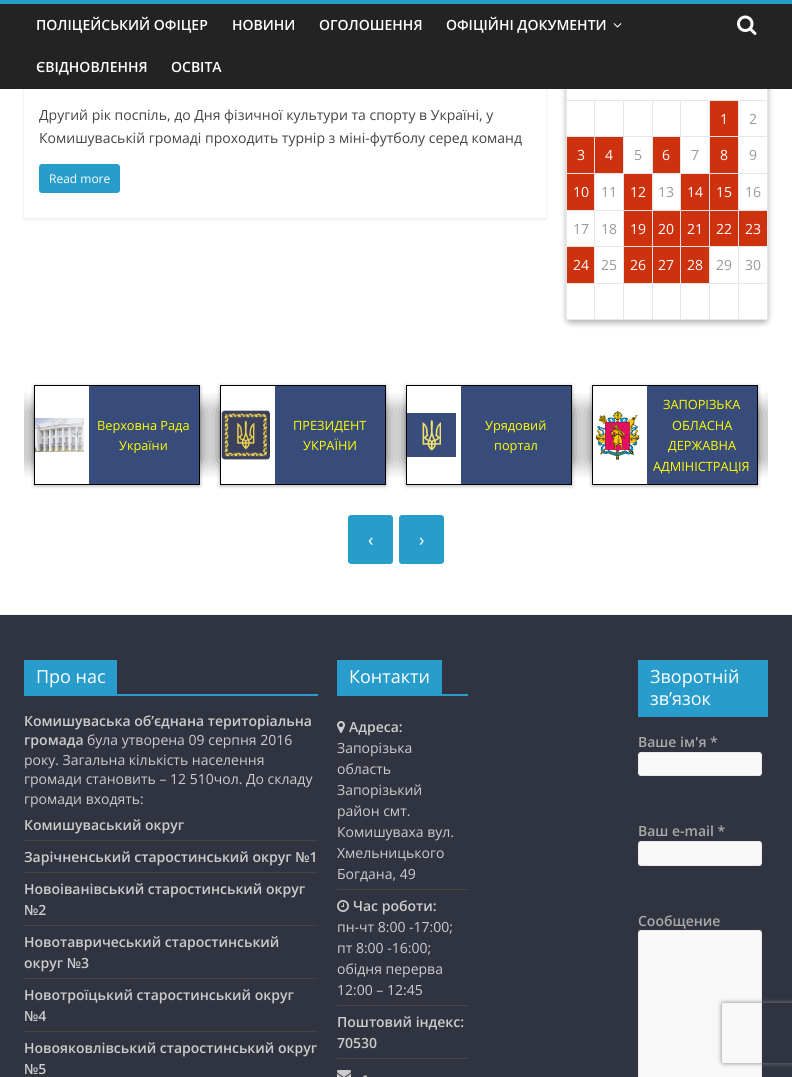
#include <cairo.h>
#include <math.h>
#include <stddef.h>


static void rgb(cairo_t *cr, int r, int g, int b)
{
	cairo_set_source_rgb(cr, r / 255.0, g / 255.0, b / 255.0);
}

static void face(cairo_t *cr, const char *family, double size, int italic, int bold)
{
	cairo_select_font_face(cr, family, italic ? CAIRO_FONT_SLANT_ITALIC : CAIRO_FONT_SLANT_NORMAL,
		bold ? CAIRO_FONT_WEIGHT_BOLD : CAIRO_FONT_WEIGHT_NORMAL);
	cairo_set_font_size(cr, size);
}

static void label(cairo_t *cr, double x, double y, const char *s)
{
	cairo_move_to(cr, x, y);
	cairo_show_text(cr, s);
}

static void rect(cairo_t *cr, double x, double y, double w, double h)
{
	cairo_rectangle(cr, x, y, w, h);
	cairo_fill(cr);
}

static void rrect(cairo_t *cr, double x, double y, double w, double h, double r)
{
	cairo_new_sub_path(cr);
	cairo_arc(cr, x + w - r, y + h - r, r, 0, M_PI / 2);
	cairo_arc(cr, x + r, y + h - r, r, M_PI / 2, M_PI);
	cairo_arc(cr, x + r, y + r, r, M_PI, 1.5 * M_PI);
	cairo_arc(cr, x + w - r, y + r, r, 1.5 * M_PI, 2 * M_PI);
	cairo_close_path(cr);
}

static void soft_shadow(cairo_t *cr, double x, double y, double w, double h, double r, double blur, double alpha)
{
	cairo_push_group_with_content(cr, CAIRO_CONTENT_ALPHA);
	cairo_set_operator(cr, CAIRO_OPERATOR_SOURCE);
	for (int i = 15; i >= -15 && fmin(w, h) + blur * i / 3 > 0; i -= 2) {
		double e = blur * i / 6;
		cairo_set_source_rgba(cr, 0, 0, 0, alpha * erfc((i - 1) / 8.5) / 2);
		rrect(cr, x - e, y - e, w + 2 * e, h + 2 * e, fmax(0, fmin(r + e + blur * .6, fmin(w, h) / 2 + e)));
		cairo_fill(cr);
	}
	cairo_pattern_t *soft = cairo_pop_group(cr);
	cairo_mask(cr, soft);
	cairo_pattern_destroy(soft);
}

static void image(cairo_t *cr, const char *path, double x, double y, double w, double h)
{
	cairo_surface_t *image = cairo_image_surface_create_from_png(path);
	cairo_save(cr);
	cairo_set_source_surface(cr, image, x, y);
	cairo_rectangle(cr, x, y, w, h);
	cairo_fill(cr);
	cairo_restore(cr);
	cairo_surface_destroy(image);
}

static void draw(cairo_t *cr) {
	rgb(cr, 255, 255, 255);
	cairo_paint(cr);
	cairo_save(cr);
	cairo_set_fill_rule(cr, CAIRO_FILL_RULE_EVEN_ODD);
	cairo_new_path(cr);
	cairo_move_to(cr, 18, 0);
	cairo_line_to(cr, 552, 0);
	cairo_line_to(cr, 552, 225);
	cairo_line_to(cr, 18, 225);
	cairo_close_path(cr);
	cairo_move_to(cr, 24, -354);
	cairo_line_to(cr, 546, -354);
	cairo_line_to(cr, 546, 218);
	cairo_line_to(cr, 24, 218);
	cairo_close_path(cr);
	cairo_clip(cr);
	rgb(cr, 0, 0, 0);
	soft_shadow(cr, 24, -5, 522, 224, 0, 1.5, 0.1);
	cairo_restore(cr);
	cairo_save(cr);
	cairo_set_fill_rule(cr, CAIRO_FILL_RULE_EVEN_ODD);
	cairo_new_path(cr);
	cairo_move_to(cr, 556, 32);
	cairo_line_to(cr, 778, 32);
	cairo_line_to(cr, 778, 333);
	cairo_line_to(cr, 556, 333);
	cairo_close_path(cr);
	cairo_move_to(cr, 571, 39);
	cairo_line_to(cr, 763, 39);
	cairo_curve_to(cr, 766, 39, 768, 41, 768, 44);
	cairo_line_to(cr, 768, 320);
	cairo_line_to(cr, 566, 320);
	cairo_line_to(cr, 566, 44);
	cairo_curve_to(cr, 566, 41, 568, 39, 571, 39);
	cairo_close_path(cr);
	cairo_clip(cr);
	rgb(cr, 0, 0, 0);
	soft_shadow(cr, 566, 42, 202, 281, 5, 3, 0.3);
	cairo_restore(cr);
	rgb(cr, 35, 35, 35);
	rect(cr, 0, 4, 792, 85);
	rgb(cr, 40, 157, 204);
	rect(cr, 0, 0, 792, 4);
	face(cr, "Open Sans SemiBold", 14, 0, 0);
	rgb(cr, 255, 255, 255);
	label(cr, 36, 30, "ПОЛІЦЕЙСЬКИЙ ОФІЦЕР");
	label(cr, 232, 30, "НОВИНИ");
	label(cr, 319, 30, "ОГОЛОШЕННЯ");
	label(cr, 446, 30, "ОФІЦІЙНІ ДОКУМЕНТИ");
	image(cr, "image0.png", 613, 23, 9, 5);
	label(cr, 36, 72, "ЄВІДНОВЛЕННЯ");
	label(cr, 171, 72, "ОСВIТА");
	image(cr, "image1.png", 737, 15, 20, 20);
	face(cr, "Open Sans", 14, 0, 0);
	rgb(cr, 68, 68, 68);
	label(cr, 39, 120, "Другий рік поспіль, до Дня фізичної культури та спорту в Україні, у");
	label(cr, 39, 143, "Комишуваській громаді проходить турнір з міні-футболу серед команд");
	rgb(cr, 40, 157, 204);
	rrect(cr, 39, 164, 81, 29, 3);
	cairo_fill(cr);
	face(cr, "Open Sans", 12, 0, 0);
	rgb(cr, 255, 255, 255);
	label(cr, 49, 183, "Read more");
	rgb(cr, 230, 230, 230);
	rect(cr, 767, 89, 1, 11);
	rect(cr, 566, 89, 1, 11);
	rect(cr, 566, 100, 202, 1);
	rect(cr, 767, 100, 1, 220);
	rect(cr, 566, 100, 1, 220);
	rect(cr, 594, 101, 1, 219);
	rect(cr, 567, 136, 28, 1);
	rect(cr, 623, 101, 1, 219);
	rect(cr, 595, 136, 29, 1);
	rect(cr, 652, 101, 1, 219);
	rect(cr, 624, 136, 29, 1);
	rect(cr, 680, 101, 1, 219);
	rect(cr, 653, 136, 28, 1);
	rect(cr, 709, 101, 1, 219);
	rect(cr, 681, 136, 29, 1);
	rgb(cr, 205, 49, 13);
	rect(cr, 710, 101, 28, 35);
	rgb(cr, 230, 230, 230);
	rect(cr, 738, 101, 1, 219);
	rect(cr, 710, 136, 57, 1);
	face(cr, "Open Sans", 14, 0, 0);
	rgb(cr, 255, 255, 255);
	label(cr, 720, 124, "1");
	rgb(cr, 153, 153, 153);
	label(cr, 749, 124, "2");
	rgb(cr, 205, 49, 13);
	rect(cr, 567, 137, 27, 36);
	rgb(cr, 230, 230, 230);
	rect(cr, 567, 173, 200, 1);
	rgb(cr, 255, 255, 255);
	label(cr, 577, 160, "3");
	rgb(cr, 205, 49, 13);
	rect(cr, 595, 137, 28, 36);
	rgb(cr, 255, 255, 255);
	label(cr, 605, 160, "4");
	rgb(cr, 153, 153, 153);
	label(cr, 634, 160, "5");
	rgb(cr, 205, 49, 13);
	rect(cr, 653, 137, 27, 36);
	rgb(cr, 255, 255, 255);
	label(cr, 662, 160, "6");
	rgb(cr, 153, 153, 153);
	label(cr, 691, 160, "7");
	rgb(cr, 205, 49, 13);
	rect(cr, 710, 137, 28, 36);
	rgb(cr, 255, 255, 255);
	label(cr, 720, 160, "8");
	rgb(cr, 153, 153, 153);
	label(cr, 749, 160, "9");
	rgb(cr, 205, 49, 13);
	rect(cr, 567, 174, 27, 36);
	rgb(cr, 230, 230, 230);
	rect(cr, 567, 210, 200, 1);
	rgb(cr, 255, 255, 255);
	label(cr, 573, 197, "10");
	rgb(cr, 153, 153, 153);
	label(cr, 601, 197, "11");
	rgb(cr, 205, 49, 13);
	rect(cr, 624, 174, 28, 36);
	rgb(cr, 255, 255, 255);
	label(cr, 630, 197, "12");
	rgb(cr, 153, 153, 153);
	label(cr, 658, 197, "13");
	rgb(cr, 205, 49, 13);
	rect(cr, 681, 174, 28, 36);
	rgb(cr, 255, 255, 255);
	label(cr, 687, 197, "14");
	rgb(cr, 205, 49, 13);
	rect(cr, 710, 174, 28, 36);
	rgb(cr, 255, 255, 255);
	label(cr, 716, 197, "15");
	rgb(cr, 153, 153, 153);
	label(cr, 745, 197, "16");
	rgb(cr, 230, 230, 230);
	rect(cr, 567, 246, 200, 1);
	rgb(cr, 153, 153, 153);
	label(cr, 573, 234, "17");
	label(cr, 601, 234, "18");
	rgb(cr, 205, 49, 13);
	rect(cr, 624, 211, 28, 35);
	rgb(cr, 255, 255, 255);
	label(cr, 630, 234, "19");
	rgb(cr, 205, 49, 13);
	rect(cr, 653, 211, 27, 35);
	rgb(cr, 255, 255, 255);
	label(cr, 658, 234, "20");
	rgb(cr, 205, 49, 13);
	rect(cr, 681, 211, 28, 35);
	rgb(cr, 255, 255, 255);
	label(cr, 687, 234, "21");
	rgb(cr, 205, 49, 13);
	rect(cr, 710, 211, 28, 35);
	rgb(cr, 255, 255, 255);
	label(cr, 716, 234, "22");
	rgb(cr, 205, 49, 13);
	rect(cr, 739, 211, 28, 35);
	rgb(cr, 255, 255, 255);
	label(cr, 745, 234, "23");
	rgb(cr, 205, 49, 13);
	rect(cr, 567, 247, 27, 36);
	rgb(cr, 230, 230, 230);
	rect(cr, 567, 283, 200, 1);
	rgb(cr, 255, 255, 255);
	label(cr, 573, 270, "24");
	rgb(cr, 153, 153, 153);
	label(cr, 601, 270, "25");
	rgb(cr, 205, 49, 13);
	rect(cr, 624, 247, 28, 36);
	rgb(cr, 255, 255, 255);
	label(cr, 630, 270, "26");
	rgb(cr, 205, 49, 13);
	rect(cr, 653, 247, 27, 36);
	rgb(cr, 255, 255, 255);
	label(cr, 658, 270, "27");
	rgb(cr, 205, 49, 13);
	rect(cr, 681, 247, 28, 36);
	rgb(cr, 255, 255, 255);
	label(cr, 687, 270, "28");
	rgb(cr, 153, 153, 153);
	label(cr, 716, 270, "29");
	label(cr, 745, 270, "30");
	rgb(cr, 230, 230, 230);
	rect(cr, 567, 319, 200, 1);
	cairo_save(cr);
	cairo_rectangle(cr, 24, 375, 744, 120);
	cairo_clip(cr);
	rgb(cr, 0, 0, 0);
	soft_shadow(cr, -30, 408, 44, 54, 0, 10, 0.6);
	cairo_restore(cr);
	cairo_save(cr);
	cairo_rectangle(cr, 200, 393, 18, 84);
	cairo_clip(cr);
	rgb(cr, 0, 0, 0);
	soft_shadow(cr, 80, 408, 120, 54, 0, 10, 0.6);
	cairo_restore(cr);
	cairo_save(cr);
	cairo_rectangle(cr, 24, 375, 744, 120);
	cairo_clip(cr);
	cairo_rectangle(cr, 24, 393, 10, 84);
	cairo_clip(cr);
	rgb(cr, 0, 0, 0);
	soft_shadow(cr, 34, 408, 120, 54, 0, 10, 0.6);
	cairo_restore(cr);
	cairo_save(cr);
	cairo_set_fill_rule(cr, CAIRO_FILL_RULE_EVEN_ODD);
	cairo_new_path(cr);
	cairo_move_to(cr, 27, 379);
	cairo_line_to(cr, 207, 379);
	cairo_line_to(cr, 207, 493);
	cairo_line_to(cr, 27, 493);
	cairo_close_path(cr);
	cairo_move_to(cr, 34, 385);
	cairo_line_to(cr, 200, 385);
	cairo_line_to(cr, 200, 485);
	cairo_line_to(cr, 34, 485);
	cairo_close_path(cr);
	cairo_clip(cr);
	rgb(cr, 0, 0, 0);
	soft_shadow(cr, 34, 386, 166, 100, 0, 2, 0.3);
	cairo_restore(cr);
	cairo_rectangle(cr, 34.5, 385.5, 165, 99);
	rgb(cr, 0, 0, 0);
	cairo_set_line_width(cr, 1);
	cairo_stroke(cr);
	image(cr, "image2.png", 35, 418, 49, 34);
	cairo_save(cr);
	cairo_rectangle(cr, 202, 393, 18, 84);
	cairo_clip(cr);
	rgb(cr, 0, 0, 0);
	soft_shadow(cr, 220, 408, 120, 54, 0, 10, 0.6);
	cairo_restore(cr);
	rgb(cr, 56, 76, 123);
	rect(cr, 89, 386, 110, 98);
	face(cr, "Open Sans", 12.75, 0, 0);
	rgb(cr, 255, 255, 0);
	label(cr, 97, 430, "Верховна Рада");
	label(cr, 119, 450, "України");
	cairo_save(cr);
	cairo_rectangle(cr, 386, 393, 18, 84);
	cairo_clip(cr);
	rgb(cr, 0, 0, 0);
	soft_shadow(cr, 266, 408, 120, 54, 0, 10, 0.6);
	cairo_restore(cr);
	cairo_save(cr);
	cairo_set_fill_rule(cr, CAIRO_FILL_RULE_EVEN_ODD);
	cairo_new_path(cr);
	cairo_move_to(cr, 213, 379);
	cairo_line_to(cr, 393, 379);
	cairo_line_to(cr, 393, 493);
	cairo_line_to(cr, 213, 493);
	cairo_close_path(cr);
	cairo_move_to(cr, 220, 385);
	cairo_line_to(cr, 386, 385);
	cairo_line_to(cr, 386, 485);
	cairo_line_to(cr, 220, 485);
	cairo_close_path(cr);
	cairo_clip(cr);
	rgb(cr, 0, 0, 0);
	soft_shadow(cr, 220, 386, 166, 100, 0, 2, 0.3);
	cairo_restore(cr);
	cairo_rectangle(cr, 220.5, 385.5, 165, 99);
	rgb(cr, 0, 0, 0);
	cairo_stroke(cr);
	image(cr, "image3.png", 221, 410, 49, 50);
	cairo_save(cr);
	cairo_rectangle(cr, 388, 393, 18, 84);
	cairo_clip(cr);
	rgb(cr, 0, 0, 0);
	soft_shadow(cr, 406, 408, 120, 54, 0, 10, 0.6);
	cairo_restore(cr);
	rgb(cr, 56, 76, 123);
	rect(cr, 275, 386, 110, 98);
	rgb(cr, 255, 255, 0);
	label(cr, 293, 430, "ПРЕЗИДЕНТ");
	label(cr, 303, 450, "УКРАЇНИ");
	cairo_save(cr);
	cairo_rectangle(cr, 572, 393, 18, 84);
	cairo_clip(cr);
	rgb(cr, 0, 0, 0);
	soft_shadow(cr, 452, 408, 120, 54, 0, 10, 0.6);
	cairo_restore(cr);
	cairo_save(cr);
	cairo_set_fill_rule(cr, CAIRO_FILL_RULE_EVEN_ODD);
	cairo_new_path(cr);
	cairo_move_to(cr, 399, 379);
	cairo_line_to(cr, 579, 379);
	cairo_line_to(cr, 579, 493);
	cairo_line_to(cr, 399, 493);
	cairo_close_path(cr);
	cairo_move_to(cr, 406, 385);
	cairo_line_to(cr, 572, 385);
	cairo_line_to(cr, 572, 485);
	cairo_line_to(cr, 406, 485);
	cairo_close_path(cr);
	cairo_clip(cr);
	rgb(cr, 0, 0, 0);
	soft_shadow(cr, 406, 386, 166, 100, 0, 2, 0.3);
	cairo_restore(cr);
	cairo_rectangle(cr, 406.5, 385.5, 165, 99);
	rgb(cr, 0, 0, 0);
	cairo_stroke(cr);
	image(cr, "image4.png", 407, 413, 49, 44);
	cairo_save(cr);
	cairo_rectangle(cr, 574, 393, 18, 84);
	cairo_clip(cr);
	rgb(cr, 0, 0, 0);
	soft_shadow(cr, 592, 408, 120, 54, 0, 10, 0.6);
	cairo_restore(cr);
	rgb(cr, 56, 76, 123);
	rect(cr, 461, 386, 110, 98);
	rgb(cr, 255, 255, 0);
	label(cr, 485, 430, "Урядовий");
	label(cr, 494, 450, "портал");
	cairo_save(cr);
	cairo_rectangle(cr, 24, 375, 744, 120);
	cairo_clip(cr);
	cairo_rectangle(cr, 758, 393, 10, 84);
	cairo_clip(cr);
	rgb(cr, 0, 0, 0);
	soft_shadow(cr, 638, 408, 120, 54, 0, 10, 0.6);
	cairo_restore(cr);
	cairo_save(cr);
	cairo_set_fill_rule(cr, CAIRO_FILL_RULE_EVEN_ODD);
	cairo_new_path(cr);
	cairo_move_to(cr, 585, 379);
	cairo_line_to(cr, 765, 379);
	cairo_line_to(cr, 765, 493);
	cairo_line_to(cr, 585, 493);
	cairo_close_path(cr);
	cairo_move_to(cr, 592, 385);
	cairo_line_to(cr, 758, 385);
	cairo_line_to(cr, 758, 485);
	cairo_line_to(cr, 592, 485);
	cairo_close_path(cr);
	cairo_clip(cr);
	rgb(cr, 0, 0, 0);
	soft_shadow(cr, 592, 386, 166, 100, 0, 2, 0.3);
	cairo_restore(cr);
	cairo_rectangle(cr, 592.5, 385.5, 165, 99);
	rgb(cr, 0, 0, 0);
	cairo_stroke(cr);
	image(cr, "image5.png", 595, 411, 45, 49);
	cairo_save(cr);
	cairo_rectangle(cr, 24, 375, 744, 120);
	cairo_clip(cr);
	rgb(cr, 0, 0, 0);
	soft_shadow(cr, 778, 408, 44, 54, 0, 10, 0.6);
	cairo_restore(cr);
	rgb(cr, 56, 76, 123);
	rect(cr, 647, 386, 110, 98);
	rgb(cr, 255, 255, 0);
	label(cr, 663, 409, "ЗАПОРІЗЬКА");
	label(cr, 672, 430, "ОБЛАСНА");
	label(cr, 668, 450, "ДЕРЖАВНА");
	label(cr, 653, 471, "АДМІНІСТРАЦІЯ");
	rgb(cr, 40, 157, 204);
	rrect(cr, 348, 515, 45, 49, 3);
	cairo_fill(cr);
	face(cr, "Open Sans", 18, 0, 0);
	rgb(cr, 255, 255, 255);
	label(cr, 368, 546, "‹");
	rgb(cr, 40, 157, 204);
	rrect(cr, 399, 515, 45, 49, 3);
	cairo_fill(cr);
	rgb(cr, 255, 255, 255);
	label(cr, 419, 546, "›");
	rgb(cr, 48, 52, 64);
	rect(cr, 0, 615, 792, 462);
	rgb(cr, 242, 242, 242);
	rect(cr, 0, 614, 792, 1);
	rgb(cr, 40, 157, 204);
	rect(cr, 24, 694, 294, 2);
	rect(cr, 24, 660, 93, 34);
	rgb(cr, 255, 255, 255);
	label(cr, 36, 683, "Про нас");
	face(cr, "Open Sans SemiBold", 14, 0, 0);
	rgb(cr, 204, 204, 204);
	label(cr, 24, 726, "Комишуваська об’єднана територіальна");
	label(cr, 24, 745, "громада");
	face(cr, "Open Sans", 14, 0, 0);
	label(cr, 87, 745, "була утворена 09 серпня 2016");
	label(cr, 24, 765, "року. Загальна кількість населення");
	label(cr, 24, 784, "громади становить – 12 510чол. До складу");
	label(cr, 24, 804, "громади входять:");
	rgb(cr, 68, 68, 68);
	rect(cr, 24, 840, 294, 1);
	face(cr, "Open Sans SemiBold", 14, 0, 0);
	rgb(cr, 204, 204, 204);
	label(cr, 24, 830, "Комишуваський округ");
	rgb(cr, 68, 68, 68);
	rect(cr, 24, 872, 294, 1);
	rgb(cr, 204, 204, 204);
	label(cr, 24, 862, "Зарічненський старостинський округ №1");
	rgb(cr, 68, 68, 68);
	rect(cr, 24, 925, 294, 1);
	rgb(cr, 204, 204, 204);
	label(cr, 24, 894, "Новоіванівський старостинський округ");
	label(cr, 24, 915, "№2");
	rgb(cr, 68, 68, 68);
	rect(cr, 24, 978, 294, 1);
	rgb(cr, 204, 204, 204);
	label(cr, 24, 947, "Новотавричеський старостинський");
	label(cr, 24, 968, "округ №3");
	rgb(cr, 68, 68, 68);
	rect(cr, 24, 1031, 294, 1);
	rgb(cr, 204, 204, 204);
	label(cr, 24, 1000, "Новотроїцький старостинський округ");
	label(cr, 24, 1021, "№4");
	label(cr, 24, 1053, "Новояковлівський старостинський округ");
	label(cr, 24, 1074, "№5");
	rgb(cr, 40, 157, 204);
	rect(cr, 337, 694, 131, 2);
	rect(cr, 337, 660, 105, 34);
	face(cr, "Open Sans", 18, 0, 0);
	rgb(cr, 255, 255, 255);
	label(cr, 349, 683, "Контакти");
	rgb(cr, 68, 68, 68);
	rect(cr, 337, 889, 131, 1);
	image(cr, "image6.png", 337, 721, 8, 12);
	face(cr, "Open Sans SemiBold", 14, 0, 0);
	rgb(cr, 204, 204, 204);
	label(cr, 349, 732, "Адреса:");
	face(cr, "Open Sans", 14, 0, 0);
	label(cr, 337, 753, "Запорізька");
	label(cr, 337, 774, "область");
	label(cr, 337, 795, "Запорізький");
	label(cr, 337, 816, "район смт.");
	label(cr, 337, 837, "Комишуваха вул.");
	label(cr, 337, 858, "Хмельницького");
	label(cr, 337, 879, "Богдана, 49");
	rgb(cr, 68, 68, 68);
	rect(cr, 337, 1005, 131, 1);
	image(cr, "image7.png", 337, 900, 12, 12);
	face(cr, "Open Sans SemiBold", 14, 0, 0);
	rgb(cr, 204, 204, 204);
	label(cr, 353, 911, "Час роботи:");
	face(cr, "Open Sans", 14, 0, 0);
	label(cr, 337, 932, "пн-чт 8:00 -17:00;");
	label(cr, 337, 953, "пт 8:00 -16:00;");
	label(cr, 337, 974, "обідня перерва");
	label(cr, 337, 995, "12:00 – 12:45");
	rgb(cr, 68, 68, 68);
	rect(cr, 337, 1058, 131, 1);
	face(cr, "Open Sans SemiBold", 14, 0, 0);
	rgb(cr, 204, 204, 204);
	label(cr, 337, 1027, "Поштовий індекс:");
	label(cr, 337, 1048, "70530");
	image(cr, "image8.png", 337, 1070, 14, 7);
	label(cr, 363, 1080, "-");
	rgb(cr, 40, 157, 204);
	rect(cr, 638, 660, 130, 57);
	face(cr, "Open Sans", 18, 0, 0);
	rgb(cr, 255, 255, 255);
	label(cr, 650, 683, "Зворотній");
	label(cr, 650, 705, "зв’язок");
	face(cr, "Open Sans SemiBold", 14, 0, 0);
	rgb(cr, 170, 170, 170);
	label(cr, 638, 747, "Ваше ім'я *");
	rgb(cr, 248, 248, 248);
	rrect(cr, 638.5, 752.5, 123, 23, 2.5);
	cairo_fill_preserve(cr);
	rgb(cr, 234, 234, 234);
	cairo_stroke(cr);
	rgb(cr, 170, 170, 170);
	label(cr, 638, 836, "Ваш e-mail *");
	rgb(cr, 248, 248, 248);
	rrect(cr, 638.5, 841.5, 123, 24, 2.5);
	cairo_fill_preserve(cr);
	rgb(cr, 234, 234, 234);
	cairo_stroke(cr);
	rgb(cr, 170, 170, 170);
	label(cr, 638, 926, "Сообщение");
	rgb(cr, 248, 248, 248);
	rrect(cr, 638.5, 930.5, 123, 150, 2.5);
	cairo_fill_preserve(cr);
	rgb(cr, 234, 234, 234);
	cairo_stroke(cr);
	cairo_save(cr);
	cairo_set_fill_rule(cr, CAIRO_FILL_RULE_EVEN_ODD);
	cairo_new_path(cr);
	cairo_move_to(cr, 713, 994);
	cairo_line_to(cr, 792, 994);
	cairo_line_to(cr, 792, 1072);
	cairo_line_to(cr, 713, 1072);
	cairo_close_path(cr);
	cairo_move_to(cr, 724, 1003);
	cairo_line_to(cr, 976, 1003);
	cairo_curve_to(cr, 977, 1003, 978, 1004, 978, 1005);
	cairo_line_to(cr, 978, 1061);
	cairo_curve_to(cr, 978, 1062, 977, 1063, 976, 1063);
	cairo_line_to(cr, 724, 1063);
	cairo_curve_to(cr, 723, 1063, 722, 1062, 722, 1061);
	cairo_line_to(cr, 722, 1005);
	cairo_curve_to(cr, 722, 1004, 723, 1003, 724, 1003);
	cairo_close_path(cr);
	cairo_clip(cr);
	rgb(cr, 128, 128, 128);
	soft_shadow(cr, 722, 1003, 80, 60, 2, 2.5, 1);
	cairo_restore(cr);
}

int main(void) {
	cairo_surface_t *surface = cairo_image_surface_create(CAIRO_FORMAT_RGB24, 792, 1077);
	cairo_t *cr = cairo_create(surface);
	cairo_font_options_t *options = cairo_font_options_create();
	cairo_font_options_set_hint_metrics(options, CAIRO_HINT_METRICS_OFF);
	cairo_font_options_set_hint_style(options, CAIRO_HINT_STYLE_NONE);
	cairo_set_font_options(cr, options);
	cairo_set_miter_limit(cr, 4);
	draw(cr);
	cairo_surface_write_to_png(surface, "render.png");
	cairo_font_options_destroy(options);
	cairo_destroy(cr);
	cairo_surface_destroy(surface);
	return 0;
}
